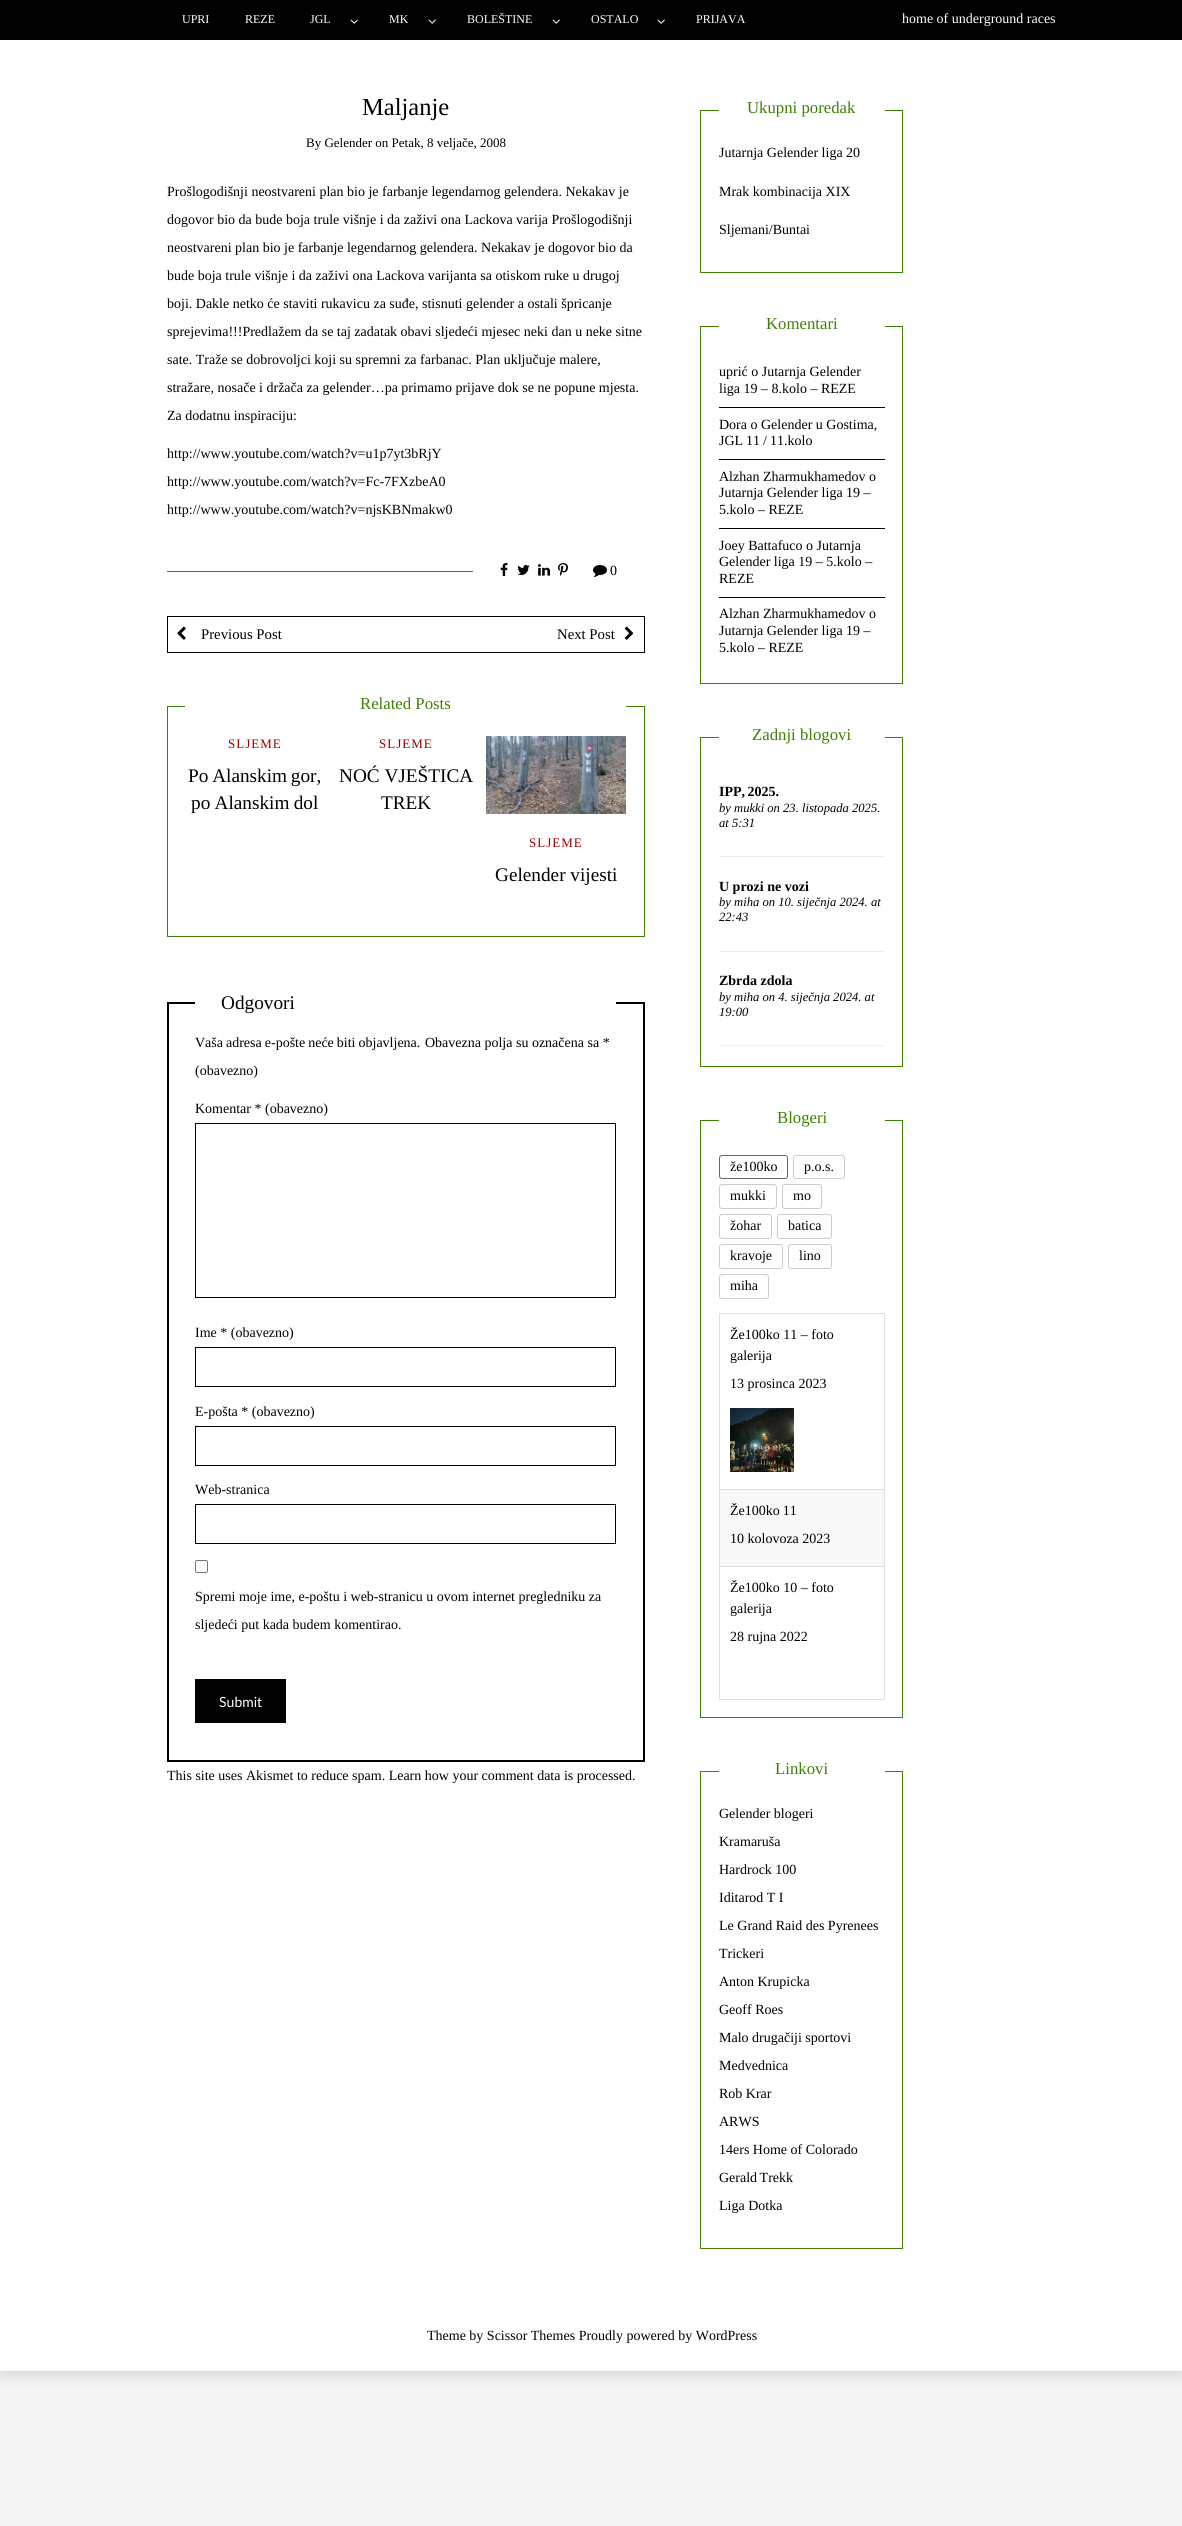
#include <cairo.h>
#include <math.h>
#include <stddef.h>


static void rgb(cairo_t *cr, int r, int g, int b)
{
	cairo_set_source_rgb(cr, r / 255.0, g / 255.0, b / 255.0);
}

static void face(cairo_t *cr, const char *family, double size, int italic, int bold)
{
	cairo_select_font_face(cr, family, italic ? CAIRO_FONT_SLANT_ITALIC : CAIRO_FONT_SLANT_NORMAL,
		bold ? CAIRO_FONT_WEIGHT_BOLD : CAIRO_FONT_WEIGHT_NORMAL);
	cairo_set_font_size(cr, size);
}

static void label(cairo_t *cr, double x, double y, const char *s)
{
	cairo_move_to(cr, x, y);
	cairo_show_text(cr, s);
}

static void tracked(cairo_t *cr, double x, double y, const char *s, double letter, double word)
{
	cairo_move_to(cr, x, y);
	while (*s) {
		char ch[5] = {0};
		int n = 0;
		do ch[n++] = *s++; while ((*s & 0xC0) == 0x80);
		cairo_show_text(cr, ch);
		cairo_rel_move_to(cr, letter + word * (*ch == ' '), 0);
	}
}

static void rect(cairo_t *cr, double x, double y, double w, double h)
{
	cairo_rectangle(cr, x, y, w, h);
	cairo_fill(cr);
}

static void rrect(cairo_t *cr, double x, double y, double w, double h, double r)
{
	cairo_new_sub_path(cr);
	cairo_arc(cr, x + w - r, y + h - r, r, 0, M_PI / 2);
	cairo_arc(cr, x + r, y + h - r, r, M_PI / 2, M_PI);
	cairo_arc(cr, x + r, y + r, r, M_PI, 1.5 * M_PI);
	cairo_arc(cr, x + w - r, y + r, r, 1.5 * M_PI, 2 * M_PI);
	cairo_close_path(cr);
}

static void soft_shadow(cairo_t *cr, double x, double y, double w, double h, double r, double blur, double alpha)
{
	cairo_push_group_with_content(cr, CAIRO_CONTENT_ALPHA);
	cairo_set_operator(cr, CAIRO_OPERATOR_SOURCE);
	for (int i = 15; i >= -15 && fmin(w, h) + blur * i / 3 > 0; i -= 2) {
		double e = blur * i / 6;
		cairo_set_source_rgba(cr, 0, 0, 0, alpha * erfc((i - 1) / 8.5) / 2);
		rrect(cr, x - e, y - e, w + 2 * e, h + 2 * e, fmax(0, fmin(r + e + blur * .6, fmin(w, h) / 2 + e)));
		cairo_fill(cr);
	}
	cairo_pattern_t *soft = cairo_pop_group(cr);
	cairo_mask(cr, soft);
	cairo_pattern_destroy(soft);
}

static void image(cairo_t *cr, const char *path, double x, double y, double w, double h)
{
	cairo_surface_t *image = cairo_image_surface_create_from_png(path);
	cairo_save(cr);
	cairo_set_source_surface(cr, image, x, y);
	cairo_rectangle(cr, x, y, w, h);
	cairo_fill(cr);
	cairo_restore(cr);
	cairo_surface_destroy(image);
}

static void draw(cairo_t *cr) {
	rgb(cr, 245, 245, 245);
	cairo_paint(cr);
	rgb(cr, 0, 0, 0);
	soft_shadow(cr, 0, 0, 1182, 2371, 0, 9, 0.2);
	rgb(cr, 255, 255, 255);
	rect(cr, 0, 40, 1182, 2331);
	rgb(cr, 0, 0, 0);
	rect(cr, 0, 0, 1182, 40);
	face(cr, "Liberation Serif", 12, 0, 0);
	rgb(cr, 255, 255, 255);
	label(cr, 182, 23, "UPRI");
	label(cr, 245, 23, "REZE");
	label(cr, 310, 23, "JGL");
	image(cr, "image0.png", 350, 19, 8, 5);
	label(cr, 389, 23, "MK");
	image(cr, "image0.png", 428, 19, 8, 5);
	label(cr, 467, 23, "BOLEŠTINE");
	image(cr, "image0.png", 552, 19, 8, 5);
	label(cr, 591, 23, "OSTALO");
	image(cr, "image0.png", 657, 19, 8, 5);
	label(cr, 696, 23, "PRIJAVA");
	face(cr, "Liberation Serif", 14, 0, 0);
	label(cr, 902, 23, "home of underground races");
	face(cr, "Liberation Serif", 24.5, 0, 0);
	rgb(cr, 0, 0, 0);
	label(cr, 362, 115, "Maljanje");
	face(cr, "Liberation Serif", 13, 0, 0);
	label(cr, 306, 147, "By Gelender on Petak, 8 veljače, 2008");
	face(cr, "Liberation Serif", 14, 0, 0);
	label(cr, 167, 196, "Prošlogodišnji neostvareni plan bio je farbanje legendarnog gelendera. Nekakav je");
	label(cr, 167, 224, "dogovor bio da bude boja trule višnje i da zaživi ona Lackova varija Prošlogodišnji");
	label(cr, 167, 252, "neostvareni plan bio je farbanje legendarnog gelendera. Nekakav je dogovor bio da");
	label(cr, 167, 280, "bude boja trule višnje i da zaživi ona Lackova varijanta sa otiskom ruke u drugoj");
	label(cr, 167, 308, "boji. Dakle netko će staviti rukavicu za suđe, stisnuti gelender a ostali špricanje");
	label(cr, 167, 336, "sprejevima!!!Predlažem da se taj zadatak obavi sljedeći mjesec neki dan u neke sitne");
	label(cr, 167, 364, "sate. Traže se dobrovoljci koji su spremni za farbanac. Plan uključuje malere,");
	label(cr, 167, 392, "stražare, nosače i držača za gelender…pa primamo prijave dok se ne popune mjesta.");
	label(cr, 167, 420, "Za dodatnu inspiraciju:");
	label(cr, 167, 458, "http://www.youtube.com/watch?v=u1p7yt3bRjY");
	label(cr, 167, 486, "http://www.youtube.com/watch?v=Fc-7FXzbeA0");
	label(cr, 167, 514, "http://www.youtube.com/watch?v=njsKBNmakw0");
	rgb(cr, 62, 128, 3);
	rect(cr, 167, 571, 306, 1);
	image(cr, "image1.png", 500, 563, 8, 13);
	image(cr, "image2.png", 517, 565, 13, 10);
	image(cr, "image3.png", 538, 564, 12, 12);
	image(cr, "image4.png", 558, 563, 10, 13);
	image(cr, "image5.png", 593, 565, 14, 12);
	rgb(cr, 0, 0, 0);
	label(cr, 610, 575, "0");
	cairo_rectangle(cr, 167.5, 616.5, 477, 36);
	cairo_set_line_width(cr, 1);
	cairo_stroke(cr);
	image(cr, "image6.png", 177, 626, 9, 14);
	face(cr, "Liberation Serif", 14.75, 0, 0);
	label(cr, 201, 639, "Previous Post");
	label(cr, 557, 639, "Next Post");
	image(cr, "image7.png", 624, 626, 10, 14);
	cairo_rectangle(cr, 167.5, 706.5, 477, 230);
	rgb(cr, 62, 128, 3);
	cairo_stroke(cr);
	rgb(cr, 255, 255, 255);
	rect(cr, 185, 706, 441, 1);
	face(cr, "Liberation Serif", 16.75, 0, 0);
	rgb(cr, 62, 128, 3);
	label(cr, 360, 709, "Related Posts");
	face(cr, "Liberation Serif", 13, 0, 0);
	rgb(cr, 153, 0, 0);
	tracked(cr, 228, 748, "SLJEME", 1, 0);
	face(cr, "Liberation Serif", 19.25, 0, 0);
	rgb(cr, 0, 0, 0);
	tracked(cr, 188, 782, "Po Alanskim gor,", 0, -1);
	tracked(cr, 191, 809, "po Alanskim dol", 0, -0.5);
	face(cr, "Liberation Serif", 13, 0, 0);
	rgb(cr, 153, 0, 0);
	tracked(cr, 379, 748, "SLJEME", 1, 0);
	face(cr, "Liberation Serif", 19.25, 0, 0);
	rgb(cr, 0, 0, 0);
	label(cr, 339, 782, "NOĆ VJEŠTICA");
	label(cr, 381, 809, "TREK");
	image(cr, "image8.png", 486, 736, 140, 78);
	face(cr, "Liberation Serif", 13, 0, 0);
	rgb(cr, 153, 0, 0);
	tracked(cr, 529, 847, "SLJEME", 1, 0);
	face(cr, "Liberation Serif", 19.25, 0, 0);
	rgb(cr, 0, 0, 0);
	label(cr, 495, 881, "Gelender vijesti");
	cairo_rectangle(cr, 168, 1003, 476, 758);
	cairo_set_line_width(cr, 2);
	cairo_stroke(cr);
	rgb(cr, 255, 255, 255);
	rect(cr, 195, 1002, 421, 2);
	rgb(cr, 0, 0, 0);
	label(cr, 221, 1009, "Odgovori");
	face(cr, "Liberation Serif", 14, 0, 0);
	tracked(cr, 195, 1047, "Vaša adresa e-pošte neće biti objavljena.", 0, -0.5);
	label(cr, 425, 1047, "Obavezna polja su označena sa *");
	label(cr, 195, 1075, "(obavezno)");
	label(cr, 195, 1113, "Komentar * (obavezno)");
	cairo_rectangle(cr, 195.5, 1123.5, 420, 174);
	cairo_set_line_width(cr, 1);
	cairo_stroke(cr);
	label(cr, 195, 1337, "Ime * (obavezno)");
	cairo_rectangle(cr, 195.5, 1347.5, 420, 39);
	cairo_stroke(cr);
	label(cr, 195, 1416, "E-pošta * (obavezno)");
	cairo_rectangle(cr, 195.5, 1426.5, 420, 39);
	cairo_stroke(cr);
	label(cr, 195, 1494, "Web-stranica");
	cairo_rectangle(cr, 195.5, 1504.5, 420, 39);
	cairo_stroke(cr);
	rrect(cr, 195.5, 1560.5, 12, 12, 1.5);
	rgb(cr, 118, 118, 118);
	cairo_stroke(cr);
	rgb(cr, 0, 0, 0);
	label(cr, 195, 1601, "Spremi moje ime, e-poštu i web-stranicu u ovom internet pregledniku za");
	label(cr, 195, 1629, "sljedeći put kada budem komentirao.");
	rect(cr, 195, 1679, 91, 44);
	face(cr, "Lato", 14, 0, 0);
	rgb(cr, 255, 255, 255);
	label(cr, 219, 1707, "Submit");
	face(cr, "Liberation Serif", 14, 0, 0);
	rgb(cr, 0, 0, 0);
	label(cr, 167, 1780, "This site uses Akismet to reduce spam. Learn how your comment data is processed.");
	cairo_rectangle(cr, 700.5, 110.5, 202, 162);
	rgb(cr, 62, 128, 3);
	cairo_stroke(cr);
	rgb(cr, 255, 255, 255);
	rect(cr, 719, 110, 166, 1);
	face(cr, "Liberation Serif", 16.75, 0, 0);
	rgb(cr, 62, 128, 3);
	label(cr, 747, 113, "Ukupni poredak");
	face(cr, "Liberation Serif", 14, 0, 0);
	rgb(cr, 0, 0, 0);
	label(cr, 719, 157, "Jutarnja Gelender liga 20");
	label(cr, 719, 196, "Mrak kombinacija XIX");
	label(cr, 719, 234, "Sljemani/Buntai");
	cairo_rectangle(cr, 700.5, 326.5, 202, 357);
	rgb(cr, 62, 128, 3);
	cairo_stroke(cr);
	rgb(cr, 255, 255, 255);
	rect(cr, 719, 326, 166, 1);
	face(cr, "Liberation Serif", 16.75, 0, 0);
	rgb(cr, 62, 128, 3);
	label(cr, 766, 329, "Komentari");
	rgb(cr, 0, 0, 0);
	rect(cr, 719, 407, 166, 1);
	face(cr, "Liberation Serif", 14, 0, 0);
	label(cr, 719, 376, "uprić o Jutarnja Gelender");
	label(cr, 719, 393, "liga 19 – 8.kolo – REZE");
	rect(cr, 719, 459, 166, 1);
	label(cr, 719, 429, "Dora o Gelender u Gostima,");
	tracked(cr, 719, 445, "JGL 11 / 11.kolo", 0, -0.5);
	rect(cr, 719, 528, 166, 1);
	label(cr, 719, 481, "Alzhan Zharmukhamedov o");
	label(cr, 719, 497, "Jutarnja Gelender liga 19 –");
	label(cr, 719, 514, "5.kolo – REZE");
	rect(cr, 719, 597, 166, 1);
	label(cr, 719, 550, "Joey Battafuco o Jutarnja");
	label(cr, 719, 566, "Gelender liga 19 – 5.kolo –");
	label(cr, 719, 583, "REZE");
	label(cr, 719, 618, "Alzhan Zharmukhamedov o");
	label(cr, 719, 635, "Jutarnja Gelender liga 19 –");
	label(cr, 719, 652, "5.kolo – REZE");
	cairo_rectangle(cr, 700.5, 737.5, 202, 329);
	rgb(cr, 62, 128, 3);
	cairo_stroke(cr);
	rgb(cr, 255, 255, 255);
	rect(cr, 719, 737, 166, 1);
	face(cr, "Liberation Serif", 16.75, 0, 0);
	rgb(cr, 62, 128, 3);
	label(cr, 752, 740, "Zadnji blogovi");
	rgb(cr, 238, 238, 238);
	rect(cr, 719, 856, 166, 1);
	face(cr, "Liberation Serif", 14, 0, 1);
	rgb(cr, 0, 0, 0);
	tracked(cr, 719, 796, "IPP, 2025.", 0, -1);
	face(cr, "Liberation Serif", 12.6, 1, 0);
	label(cr, 719, 812, "by mukki on 23. listopada 2025.");
	label(cr, 719, 827, "at 5:31");
	rgb(cr, 238, 238, 238);
	rect(cr, 719, 951, 166, 1);
	face(cr, "Liberation Serif", 14, 0, 1);
	rgb(cr, 0, 0, 0);
	label(cr, 719, 891, "U prozi ne vozi");
	face(cr, "Liberation Serif", 12.6, 1, 0);
	label(cr, 719, 906, "by miha on 10. siječnja 2024. at");
	label(cr, 719, 921, "22:43");
	rgb(cr, 238, 238, 238);
	rect(cr, 719, 1045, 166, 1);
	face(cr, "Liberation Serif", 14, 0, 1);
	rgb(cr, 0, 0, 0);
	label(cr, 719, 985, "Zbrda zdola");
	face(cr, "Liberation Serif", 12.6, 1, 0);
	label(cr, 719, 1001, "by miha on 4. siječnja 2024. at");
	label(cr, 719, 1016, "19:00");
	cairo_rectangle(cr, 700.5, 1120.5, 202, 597);
	rgb(cr, 62, 128, 3);
	cairo_stroke(cr);
	rgb(cr, 255, 255, 255);
	rect(cr, 719, 1120, 166, 1);
	face(cr, "Liberation Serif", 16.75, 0, 0);
	rgb(cr, 62, 128, 3);
	label(cr, 777, 1123, "Blogeri");
	rrect(cr, 719.5, 1155.5, 68, 23, 2.5);
	rgb(cr, 102, 102, 102);
	cairo_stroke(cr);
	face(cr, "Liberation Serif", 14, 0, 0);
	rgb(cr, 0, 0, 0);
	label(cr, 730, 1171, "že100ko");
	rrect(cr, 793.5, 1155.5, 51, 23, 2.5);
	rgb(cr, 204, 204, 204);
	cairo_stroke(cr);
	rgb(cr, 0, 0, 0);
	label(cr, 804, 1171, "p.o.s.");
	rrect(cr, 719.5, 1184.5, 57, 24, 2.5);
	rgb(cr, 204, 204, 204);
	cairo_stroke(cr);
	rgb(cr, 0, 0, 0);
	label(cr, 730, 1200, "mukki");
	rrect(cr, 782.5, 1184.5, 39, 24, 2.5);
	rgb(cr, 204, 204, 204);
	cairo_stroke(cr);
	rgb(cr, 0, 0, 0);
	label(cr, 793, 1200, "mo");
	rrect(cr, 719.5, 1214.5, 52, 24, 2.5);
	rgb(cr, 204, 204, 204);
	cairo_stroke(cr);
	rgb(cr, 0, 0, 0);
	label(cr, 730, 1230, "žohar");
	rrect(cr, 777.5, 1214.5, 54, 24, 2.5);
	rgb(cr, 204, 204, 204);
	cairo_stroke(cr);
	rgb(cr, 0, 0, 0);
	label(cr, 788, 1230, "batica");
	rrect(cr, 719.5, 1244.5, 63, 24, 2.5);
	rgb(cr, 204, 204, 204);
	cairo_stroke(cr);
	rgb(cr, 0, 0, 0);
	label(cr, 730, 1260, "kravoje");
	rrect(cr, 788.5, 1244.5, 43, 24, 2.5);
	rgb(cr, 204, 204, 204);
	cairo_stroke(cr);
	rgb(cr, 0, 0, 0);
	label(cr, 799, 1260, "lino");
	rrect(cr, 719.5, 1274.5, 49, 24, 2.5);
	rgb(cr, 204, 204, 204);
	cairo_stroke(cr);
	rgb(cr, 0, 0, 0);
	label(cr, 730, 1290, "miha");
	cairo_rectangle(cr, 719.5, 1313.5, 165, 386);
	rgb(cr, 223, 223, 223);
	cairo_stroke(cr);
	rect(cr, 720, 1489, 164, 1);
	rgb(cr, 0, 0, 0);
	label(cr, 730, 1339, "Že100ko 11 – foto");
	label(cr, 730, 1360, "galerija");
	label(cr, 730, 1388, "13 prosinca 2023");
	image(cr, "image9.png", 730, 1408, 64, 64);
	rgb(cr, 248, 248, 248);
	rect(cr, 720, 1490, 164, 76);
	rgb(cr, 223, 223, 223);
	rect(cr, 720, 1566, 164, 1);
	rgb(cr, 0, 0, 0);
	tracked(cr, 730, 1515, "Že100ko 11", 0, -0.5);
	label(cr, 730, 1543, "10 kolovoza 2023");
	label(cr, 730, 1592, "Že100ko 10 – foto");
	label(cr, 730, 1613, "galerija");
	label(cr, 730, 1641, "28 rujna 2022");
	cairo_rectangle(cr, 700.5, 1771.5, 202, 477);
	rgb(cr, 62, 128, 3);
	cairo_stroke(cr);
	rgb(cr, 255, 255, 255);
	rect(cr, 719, 1771, 166, 1);
	face(cr, "Liberation Serif", 16.75, 0, 0);
	rgb(cr, 62, 128, 3);
	label(cr, 775, 1774, "Linkovi");
	face(cr, "Liberation Serif", 14, 0, 0);
	rgb(cr, 0, 0, 0);
	label(cr, 719, 1818, "Gelender blogeri");
	label(cr, 719, 1846, "Kramaruša");
	label(cr, 719, 1874, "Hardrock 100");
	label(cr, 719, 1902, "Iditarod T I");
	label(cr, 719, 1930, "Le Grand Raid des Pyrenees");
	label(cr, 719, 1958, "Trickeri");
	label(cr, 719, 1986, "Anton Krupicka");
	label(cr, 719, 2014, "Geoff Roes");
	label(cr, 719, 2042, "Malo drugačiji sportovi");
	label(cr, 719, 2070, "Medvednica");
	label(cr, 719, 2098, "Rob Krar");
	label(cr, 719, 2126, "ARWS");
	label(cr, 719, 2154, "14ers Home of Colorado");
	tracked(cr, 719, 2182, "Gerald Trekk", 0, -1);
	label(cr, 719, 2210, "Liga Dotka");
	label(cr, 427, 2340, "Theme by Scissor Themes Proudly powered by WordPress");
}

int main(void) {
	cairo_surface_t *surface = cairo_image_surface_create(CAIRO_FORMAT_RGB24, 1182, 2526);
	cairo_t *cr = cairo_create(surface);
	cairo_font_options_t *options = cairo_font_options_create();
	cairo_font_options_set_hint_metrics(options, CAIRO_HINT_METRICS_OFF);
	cairo_font_options_set_hint_style(options, CAIRO_HINT_STYLE_NONE);
	cairo_set_font_options(cr, options);
	cairo_set_miter_limit(cr, 4);
	draw(cr);
	cairo_surface_write_to_png(surface, "render.png");
	cairo_font_options_destroy(options);
	cairo_destroy(cr);
	cairo_surface_destroy(surface);
	return 0;
}
